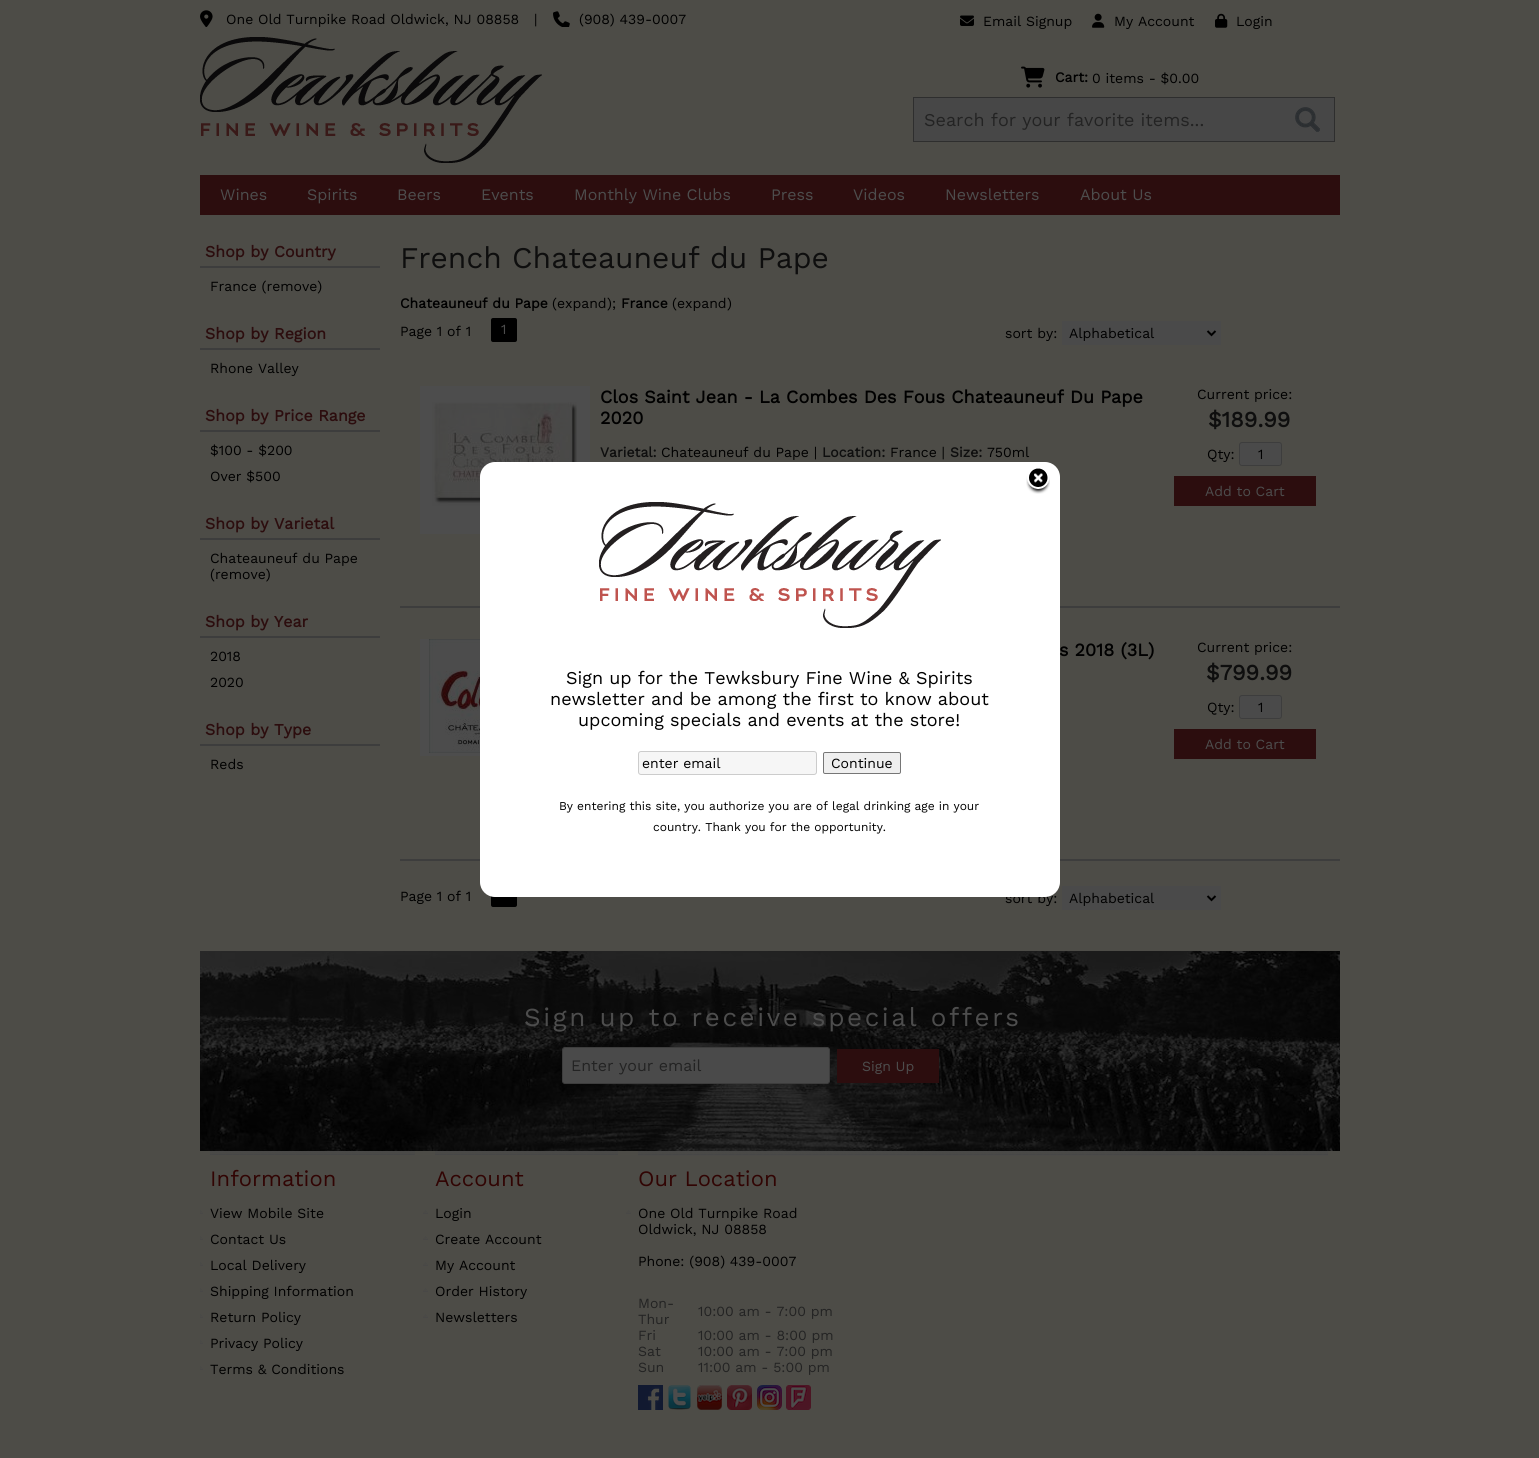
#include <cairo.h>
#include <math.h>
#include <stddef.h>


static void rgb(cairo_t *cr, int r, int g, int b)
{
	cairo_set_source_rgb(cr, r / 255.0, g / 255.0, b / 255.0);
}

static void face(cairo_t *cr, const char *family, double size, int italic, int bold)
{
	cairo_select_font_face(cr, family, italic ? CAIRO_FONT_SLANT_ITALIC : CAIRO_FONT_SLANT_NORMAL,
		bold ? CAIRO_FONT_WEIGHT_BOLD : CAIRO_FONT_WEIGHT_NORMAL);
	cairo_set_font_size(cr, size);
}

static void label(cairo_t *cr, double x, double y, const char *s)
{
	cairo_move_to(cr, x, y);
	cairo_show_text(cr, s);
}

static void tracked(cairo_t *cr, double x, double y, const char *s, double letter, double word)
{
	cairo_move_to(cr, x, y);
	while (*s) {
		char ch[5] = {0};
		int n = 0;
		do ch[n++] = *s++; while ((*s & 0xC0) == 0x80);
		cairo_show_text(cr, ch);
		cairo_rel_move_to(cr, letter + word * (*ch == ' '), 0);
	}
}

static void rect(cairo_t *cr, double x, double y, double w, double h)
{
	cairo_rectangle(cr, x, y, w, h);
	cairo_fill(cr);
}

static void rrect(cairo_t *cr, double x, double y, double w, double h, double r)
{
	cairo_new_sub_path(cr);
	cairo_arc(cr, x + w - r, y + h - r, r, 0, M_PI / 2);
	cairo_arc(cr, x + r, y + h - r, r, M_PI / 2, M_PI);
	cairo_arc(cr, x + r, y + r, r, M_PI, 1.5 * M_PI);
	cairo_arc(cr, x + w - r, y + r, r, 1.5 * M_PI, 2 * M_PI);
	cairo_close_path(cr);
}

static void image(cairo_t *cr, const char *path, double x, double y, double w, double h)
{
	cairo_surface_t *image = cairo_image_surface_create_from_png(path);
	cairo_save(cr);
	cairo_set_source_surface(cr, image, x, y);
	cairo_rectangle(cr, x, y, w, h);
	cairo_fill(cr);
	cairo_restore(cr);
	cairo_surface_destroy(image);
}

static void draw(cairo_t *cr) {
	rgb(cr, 77, 76, 71);
	cairo_paint(cr);
	image(cr, "image0.png", 200, 10, 13, 17);
	face(cr, "Work Sans", 14, 0, 0);
	rgb(cr, 0, 0, 0);
	label(cr, 226, 24, "One Old Turnpike Road Oldwick, NJ 08858");
	label(cr, 534, 24, "|");
	image(cr, "image1.png", 553, 11, 17, 16);
	label(cr, 579, 24, "(908) 439-0007");
	image(cr, "image2.png", 960, 15, 14, 11);
	label(cr, 983, 26, "Email Signup");
	image(cr, "image3.png", 1092, 13, 13, 15);
	label(cr, 1114, 26, "My Account");
	image(cr, "image4.png", 1215, 13, 13, 15);
	label(cr, 1236, 26, "Login");
	image(cr, "image5.png", 200, 37, 342, 126);
	image(cr, "image6.png", 1021, 66, 24, 22);
	face(cr, "Work Sans", 14, 0, 1);
	label(cr, 1055, 82, "Cart:");
	face(cr, "Work Sans", 14, 0, 0);
	label(cr, 1092, 83, "0 items - $0.00");
	rgb(cr, 71, 71, 71);
	cairo_rectangle(cr, 913.5, 97.5, 421, 44);
	cairo_fill_preserve(cr);
	rgb(cr, 46, 46, 46);
	cairo_set_line_width(cr, 1);
	cairo_stroke(cr);
	face(cr, "Work Sans", 18, 0, 0);
	rgb(cr, 35, 35, 35);
	label(cr, 924, 126, "Search for your favorite items...");
	image(cr, "image7.png", 1295, 107, 25, 25);
	rgb(cr, 44, 13, 14);
	rect(cr, 200, 175, 1140, 40);
	face(cr, "Work Sans", 16, 0, 0);
	rgb(cr, 77, 77, 77);
	label(cr, 220, 200, "Wines");
	label(cr, 307, 200, "Spirits");
	label(cr, 397, 200, "Beers");
	label(cr, 481, 200, "Events");
	label(cr, 574, 200, "Monthly Wine Clubs");
	label(cr, 771, 200, "Press");
	label(cr, 853, 200, "Videos");
	label(cr, 945, 200, "Newsletters");
	label(cr, 1080, 200, "About Us");
	rgb(cr, 61, 61, 61);
	rect(cr, 200, 266, 180, 2);
	face(cr, "Work Sans", 16, 0, 1);
	rgb(cr, 44, 13, 14);
	label(cr, 205, 257, "Shop by Country");
	face(cr, "Work Sans", 14, 0, 0);
	rgb(cr, 0, 0, 0);
	label(cr, 210, 291, "France (remove)");
	rgb(cr, 61, 61, 61);
	rect(cr, 200, 348, 180, 2);
	face(cr, "Work Sans", 16, 0, 1);
	rgb(cr, 44, 13, 14);
	label(cr, 205, 339, "Shop by Region");
	face(cr, "Work Sans", 14, 0, 0);
	rgb(cr, 0, 0, 0);
	label(cr, 210, 373, "Rhone Valley");
	rgb(cr, 61, 61, 61);
	rect(cr, 200, 430, 180, 2);
	face(cr, "Work Sans", 16, 0, 1);
	rgb(cr, 44, 13, 14);
	label(cr, 205, 421, "Shop by Price Range");
	face(cr, "Work Sans", 14, 0, 0);
	rgb(cr, 0, 0, 0);
	label(cr, 210, 455, "$100 - $200");
	label(cr, 210, 481, "Over $500");
	rgb(cr, 61, 61, 61);
	rect(cr, 200, 538, 180, 2);
	face(cr, "Work Sans", 16, 0, 1);
	rgb(cr, 44, 13, 14);
	label(cr, 205, 529, "Shop by Varietal");
	face(cr, "Work Sans", 14, 0, 0);
	rgb(cr, 0, 0, 0);
	label(cr, 210, 563, "Chateauneuf du Pape");
	label(cr, 210, 579, "(remove)");
	rgb(cr, 61, 61, 61);
	rect(cr, 200, 636, 180, 2);
	face(cr, "Work Sans", 16, 0, 1);
	rgb(cr, 44, 13, 14);
	label(cr, 205, 627, "Shop by Year");
	face(cr, "Work Sans", 14, 0, 0);
	rgb(cr, 0, 0, 0);
	label(cr, 210, 661, "2018");
	label(cr, 210, 687, "2020");
	rgb(cr, 61, 61, 61);
	rect(cr, 200, 744, 180, 2);
	face(cr, "Work Sans", 16, 0, 1);
	rgb(cr, 44, 13, 14);
	label(cr, 205, 735, "Shop by Type");
	face(cr, "Work Sans", 14, 0, 0);
	rgb(cr, 0, 0, 0);
	label(cr, 210, 769, "Reds");
	face(cr, "Work Sans", 30, 0, 0);
	rgb(cr, 14, 14, 14);
	label(cr, 400, 268, "French Chateauneuf du Pape");
	face(cr, "Work Sans", 14, 0, 1);
	rgb(cr, 0, 0, 0);
	label(cr, 400, 308, "Chateauneuf du Pape");
	face(cr, "Work Sans", 14, 0, 0);
	label(cr, 552, 308, "(expand");
	label(cr, 607, 308, ");");
	face(cr, "Work Sans", 14, 0, 1);
	label(cr, 621, 308, "France");
	face(cr, "Work Sans", 14, 0, 0);
	label(cr, 672, 308, "(expand");
	label(cr, 727, 308, ")");
	label(cr, 400, 336, "Page 1 of 1");
	rrect(cr, 491, 318, 26, 24, 2);
	cairo_fill(cr);
	rgb(cr, 77, 77, 77);
	label(cr, 501, 334, "1");
	rgb(cr, 0, 0, 0);
	label(cr, 1005, 338, "sort by:");
	rgb(cr, 74, 74, 74);
	rect(cr, 1062, 321, 159, 24);
	cairo_new_path(cr);
	cairo_move_to(cr, 1207.5, 331);
	cairo_line_to(cr, 1211.5, 335);
	cairo_line_to(cr, 1215.5, 331);
	rgb(cr, 0, 0, 0);
	cairo_set_line_width(cr, 2);
	cairo_stroke(cr);
	label(cr, 1069, 338, "Alphabetical");
	rgb(cr, 61, 61, 61);
	rect(cr, 400, 606, 940, 2);
	rgb(cr, 77, 77, 77);
	rect(cr, 420, 386, 170, 148);
	image(cr, "image8.png", 432, 402, 145, 104);
	face(cr, "Work Sans", 18, 0, 1);
	rgb(cr, 0, 0, 0);
	label(cr, 600, 403, "Clos Saint Jean - La Combes Des Fous Chateauneuf Du Pape");
	label(cr, 600, 424, "2020");
	face(cr, "Work Sans", 14, 0, 1);
	rgb(cr, 14, 14, 14);
	label(cr, 600, 457, "Varietal:");
	face(cr, "Work Sans", 14, 0, 0);
	rgb(cr, 0, 0, 0);
	label(cr, 661, 457, "Chateauneuf du Pape |");
	face(cr, "Work Sans", 14, 0, 1);
	rgb(cr, 14, 14, 14);
	label(cr, 822, 457, "Location:");
	face(cr, "Work Sans", 14, 0, 0);
	rgb(cr, 0, 0, 0);
	label(cr, 890, 457, "France |");
	face(cr, "Work Sans", 14, 0, 1);
	rgb(cr, 14, 14, 14);
	label(cr, 950, 457, "Size:");
	face(cr, "Work Sans", 14, 0, 0);
	rgb(cr, 0, 0, 0);
	label(cr, 987, 457, "750ml");
	label(cr, 1197, 399, "Current price:");
	face(cr, "Work Sans", 22, 0, 1);
	rgb(cr, 14, 14, 14);
	label(cr, 1208, 427, "$189.99");
	face(cr, "Work Sans", 14, 0, 0);
	rgb(cr, 0, 0, 0);
	label(cr, 1207, 459, "Qty:");
	rgb(cr, 74, 74, 74);
	rrect(cr, 1239.5, 442.5, 42, 23, 2.5);
	cairo_fill_preserve(cr);
	rgb(cr, 61, 61, 61);
	cairo_set_line_width(cr, 1);
	cairo_stroke(cr);
	rgb(cr, 0, 0, 0);
	label(cr, 1258, 459, "1");
	rgb(cr, 44, 13, 14);
	rect(cr, 1174, 476, 142, 30);
	rgb(cr, 77, 77, 77);
	label(cr, 1205, 496, "Add to Cart");
	rgb(cr, 61, 61, 61);
	rect(cr, 400, 859, 940, 2);
	rgb(cr, 77, 77, 77);
	rect(cr, 420, 639, 60, 117);
	image(cr, "image9.png", 429, 639, 51, 114);
	face(cr, "Work Sans", 18, 0, 1);
	rgb(cr, 0, 0, 0);
	label(cr, 1059, 656, "s 2018 (3L)");
	face(cr, "Work Sans", 14, 0, 0);
	label(cr, 1197, 652, "Current price:");
	face(cr, "Work Sans", 22, 0, 1);
	rgb(cr, 14, 14, 14);
	label(cr, 1206, 680, "$799.99");
	face(cr, "Work Sans", 14, 0, 0);
	rgb(cr, 0, 0, 0);
	label(cr, 1207, 712, "Qty:");
	rgb(cr, 74, 74, 74);
	rrect(cr, 1239.5, 695.5, 42, 23, 2.5);
	cairo_fill_preserve(cr);
	rgb(cr, 61, 61, 61);
	cairo_stroke(cr);
	rgb(cr, 0, 0, 0);
	label(cr, 1258, 712, "1");
	rgb(cr, 44, 13, 14);
	rect(cr, 1174, 729, 142, 30);
	rgb(cr, 77, 77, 77);
	label(cr, 1205, 749, "Add to Cart");
	rgb(cr, 0, 0, 0);
	label(cr, 400, 901, "Page 1 of 1");
	rrect(cr, 491, 883, 26, 24, 2);
	cairo_fill(cr);
	label(cr, 1005, 903, "sort by:");
	rgb(cr, 74, 74, 74);
	rect(cr, 1062, 886, 159, 24);
	cairo_new_path(cr);
	cairo_move_to(cr, 1207.5, 896);
	cairo_line_to(cr, 1211.5, 900);
	cairo_line_to(cr, 1215.5, 896);
	rgb(cr, 0, 0, 0);
	cairo_set_line_width(cr, 2);
	cairo_stroke(cr);
	label(cr, 1069, 903, "Alphabetical");
	rgb(cr, 255, 255, 255);
	rrect(cr, 480, 462, 580, 435, 15);
	cairo_fill(cr);
	image(cr, "image10.png", 1026, 468, 24, 26);
	image(cr, "image11.png", 599, 502, 342, 126);
	face(cr, "Work Sans", 18, 0, 0);
	rgb(cr, 0, 0, 0);
	label(cr, 566, 684, "Sign up for the Tewksbury Fine Wine & Spirits");
	label(cr, 550, 705, "newsletter and be among the first to know about");
	label(cr, 578, 726, "upcoming specials and events at the store!");
	rgb(cr, 246, 246, 246);
	rrect(cr, 638.5, 751.5, 178, 23, 2.5);
	cairo_fill_preserve(cr);
	rgb(cr, 204, 204, 204);
	cairo_set_line_width(cr, 1);
	cairo_stroke(cr);
	face(cr, "Work Sans", 14, 0, 0);
	rgb(cr, 0, 0, 0);
	label(cr, 642, 768, "enter email");
	rgb(cr, 239, 239, 239);
	rrect(cr, 823.5, 752.5, 77, 21, 1.5);
	cairo_fill_preserve(cr);
	rgb(cr, 118, 118, 118);
	cairo_stroke(cr);
	rgb(cr, 0, 0, 0);
	label(cr, 831, 768, "Continue");
	face(cr, "Work Sans", 12, 0, 0);
	label(cr, 559, 810, "By entering this site, you authorize you are of legal drinking age in your");
	label(cr, 653, 831, "country. Thank you for the opportunity.");
	image(cr, "image12.png", 200, 951, 1140, 200);
	face(cr, "Work Sans", 26, 0, 0);
	rgb(cr, 77, 77, 77);
	tracked(cr, 524, 1026, "Sign up to receive special offers", 2.6, 0);
	rgb(cr, 74, 74, 74);
	rrect(cr, 562.5, 1047.5, 267, 36, 2.5);
	cairo_fill_preserve(cr);
	rgb(cr, 61, 61, 61);
	cairo_stroke(cr);
	face(cr, "Work Sans", 16, 0, 0);
	rgb(cr, 35, 35, 35);
	label(cr, 571, 1071, "Enter your email");
	rgb(cr, 44, 13, 14);
	rect(cr, 837, 1049, 102, 34);
	face(cr, "Work Sans", 14, 0, 0);
	rgb(cr, 77, 77, 77);
	label(cr, 862, 1071, "Sign Up");
	image(cr, "image13.png", 210, 1151, 205, 4);
	face(cr, "Work Sans", 22, 0, 0);
	rgb(cr, 49, 4, 3);
	label(cr, 210, 1186, "Information");
	image(cr, "image14.png", 200, 1210, 3, 4);
	face(cr, "Work Sans", 14, 0, 0);
	rgb(cr, 0, 0, 0);
	label(cr, 210, 1218, "View Mobile Site");
	image(cr, "image14.png", 200, 1236, 3, 4);
	label(cr, 210, 1244, "Contact Us");
	image(cr, "image14.png", 200, 1262, 3, 4);
	label(cr, 210, 1270, "Local Delivery");
	image(cr, "image14.png", 200, 1288, 3, 4);
	label(cr, 210, 1296, "Shipping Information");
	image(cr, "image14.png", 200, 1314, 3, 4);
	label(cr, 210, 1322, "Return Policy");
	image(cr, "image14.png", 200, 1340, 3, 4);
	label(cr, 210, 1348, "Privacy Policy");
	image(cr, "image14.png", 200, 1366, 3, 4);
	label(cr, 210, 1374, "Terms & Conditions");
	image(cr, "image15.png", 435, 1151, 183, 4);
	face(cr, "Work Sans", 22, 0, 0);
	rgb(cr, 49, 4, 3);
	label(cr, 435, 1186, "Account");
	image(cr, "image16.png", 423, 1210, 5, 4);
	face(cr, "Work Sans", 14, 0, 0);
	rgb(cr, 0, 0, 0);
	label(cr, 435, 1218, "Login");
	image(cr, "image16.png", 423, 1236, 5, 4);
	label(cr, 435, 1244, "Create Account");
	image(cr, "image16.png", 423, 1262, 5, 4);
	label(cr, 435, 1270, "My Account");
	image(cr, "image16.png", 423, 1288, 5, 4);
	label(cr, 435, 1296, "Order History");
	image(cr, "image16.png", 423, 1314, 5, 4);
	label(cr, 435, 1322, "Newsletters");
	image(cr, "image17.png", 638, 1151, 690, 5);
	face(cr, "Work Sans", 22, 0, 0);
	rgb(cr, 49, 4, 3);
	label(cr, 638, 1186, "Our Location");
	image(cr, "image16.png", 626, 1210, 5, 4);
	face(cr, "Work Sans", 14, 0, 0);
	rgb(cr, 0, 0, 0);
	label(cr, 638, 1218, "One Old Turnpike Road");
	label(cr, 638, 1234, "Oldwick, NJ 08858");
	label(cr, 638, 1266, "Phone: (908) 439-0007");
	rgb(cr, 35, 35, 35);
	label(cr, 638, 1308, "Mon-");
	label(cr, 638, 1324, "Thur");
	label(cr, 698, 1316, "10:00 am - 7:00 pm");
	label(cr, 638, 1340, "Fri");
	label(cr, 698, 1340, "10:00 am - 8:00 pm");
	label(cr, 638, 1356, "Sat");
	label(cr, 698, 1356, "10:00 am - 7:00 pm");
	label(cr, 638, 1372, "Sun");
	label(cr, 698, 1372, "11:00 am - 5:00 pm");
	image(cr, "image18.png", 638, 1385, 25, 25);
	image(cr, "image19.png", 668, 1385, 23, 25);
	image(cr, "image20.png", 697, 1385, 25, 25);
	image(cr, "image21.png", 727, 1385, 25, 25);
	image(cr, "image22.png", 757, 1385, 25, 25);
	image(cr, "image23.png", 786, 1385, 25, 25);
}

int main(void) {
	cairo_surface_t *surface = cairo_image_surface_create(CAIRO_FORMAT_RGB24, 1539, 1458);
	cairo_t *cr = cairo_create(surface);
	cairo_font_options_t *options = cairo_font_options_create();
	cairo_font_options_set_hint_metrics(options, CAIRO_HINT_METRICS_OFF);
	cairo_font_options_set_hint_style(options, CAIRO_HINT_STYLE_NONE);
	cairo_set_font_options(cr, options);
	cairo_set_miter_limit(cr, 4);
	draw(cr);
	cairo_surface_write_to_png(surface, "render.png");
	cairo_font_options_destroy(options);
	cairo_destroy(cr);
	cairo_surface_destroy(surface);
	return 0;
}
